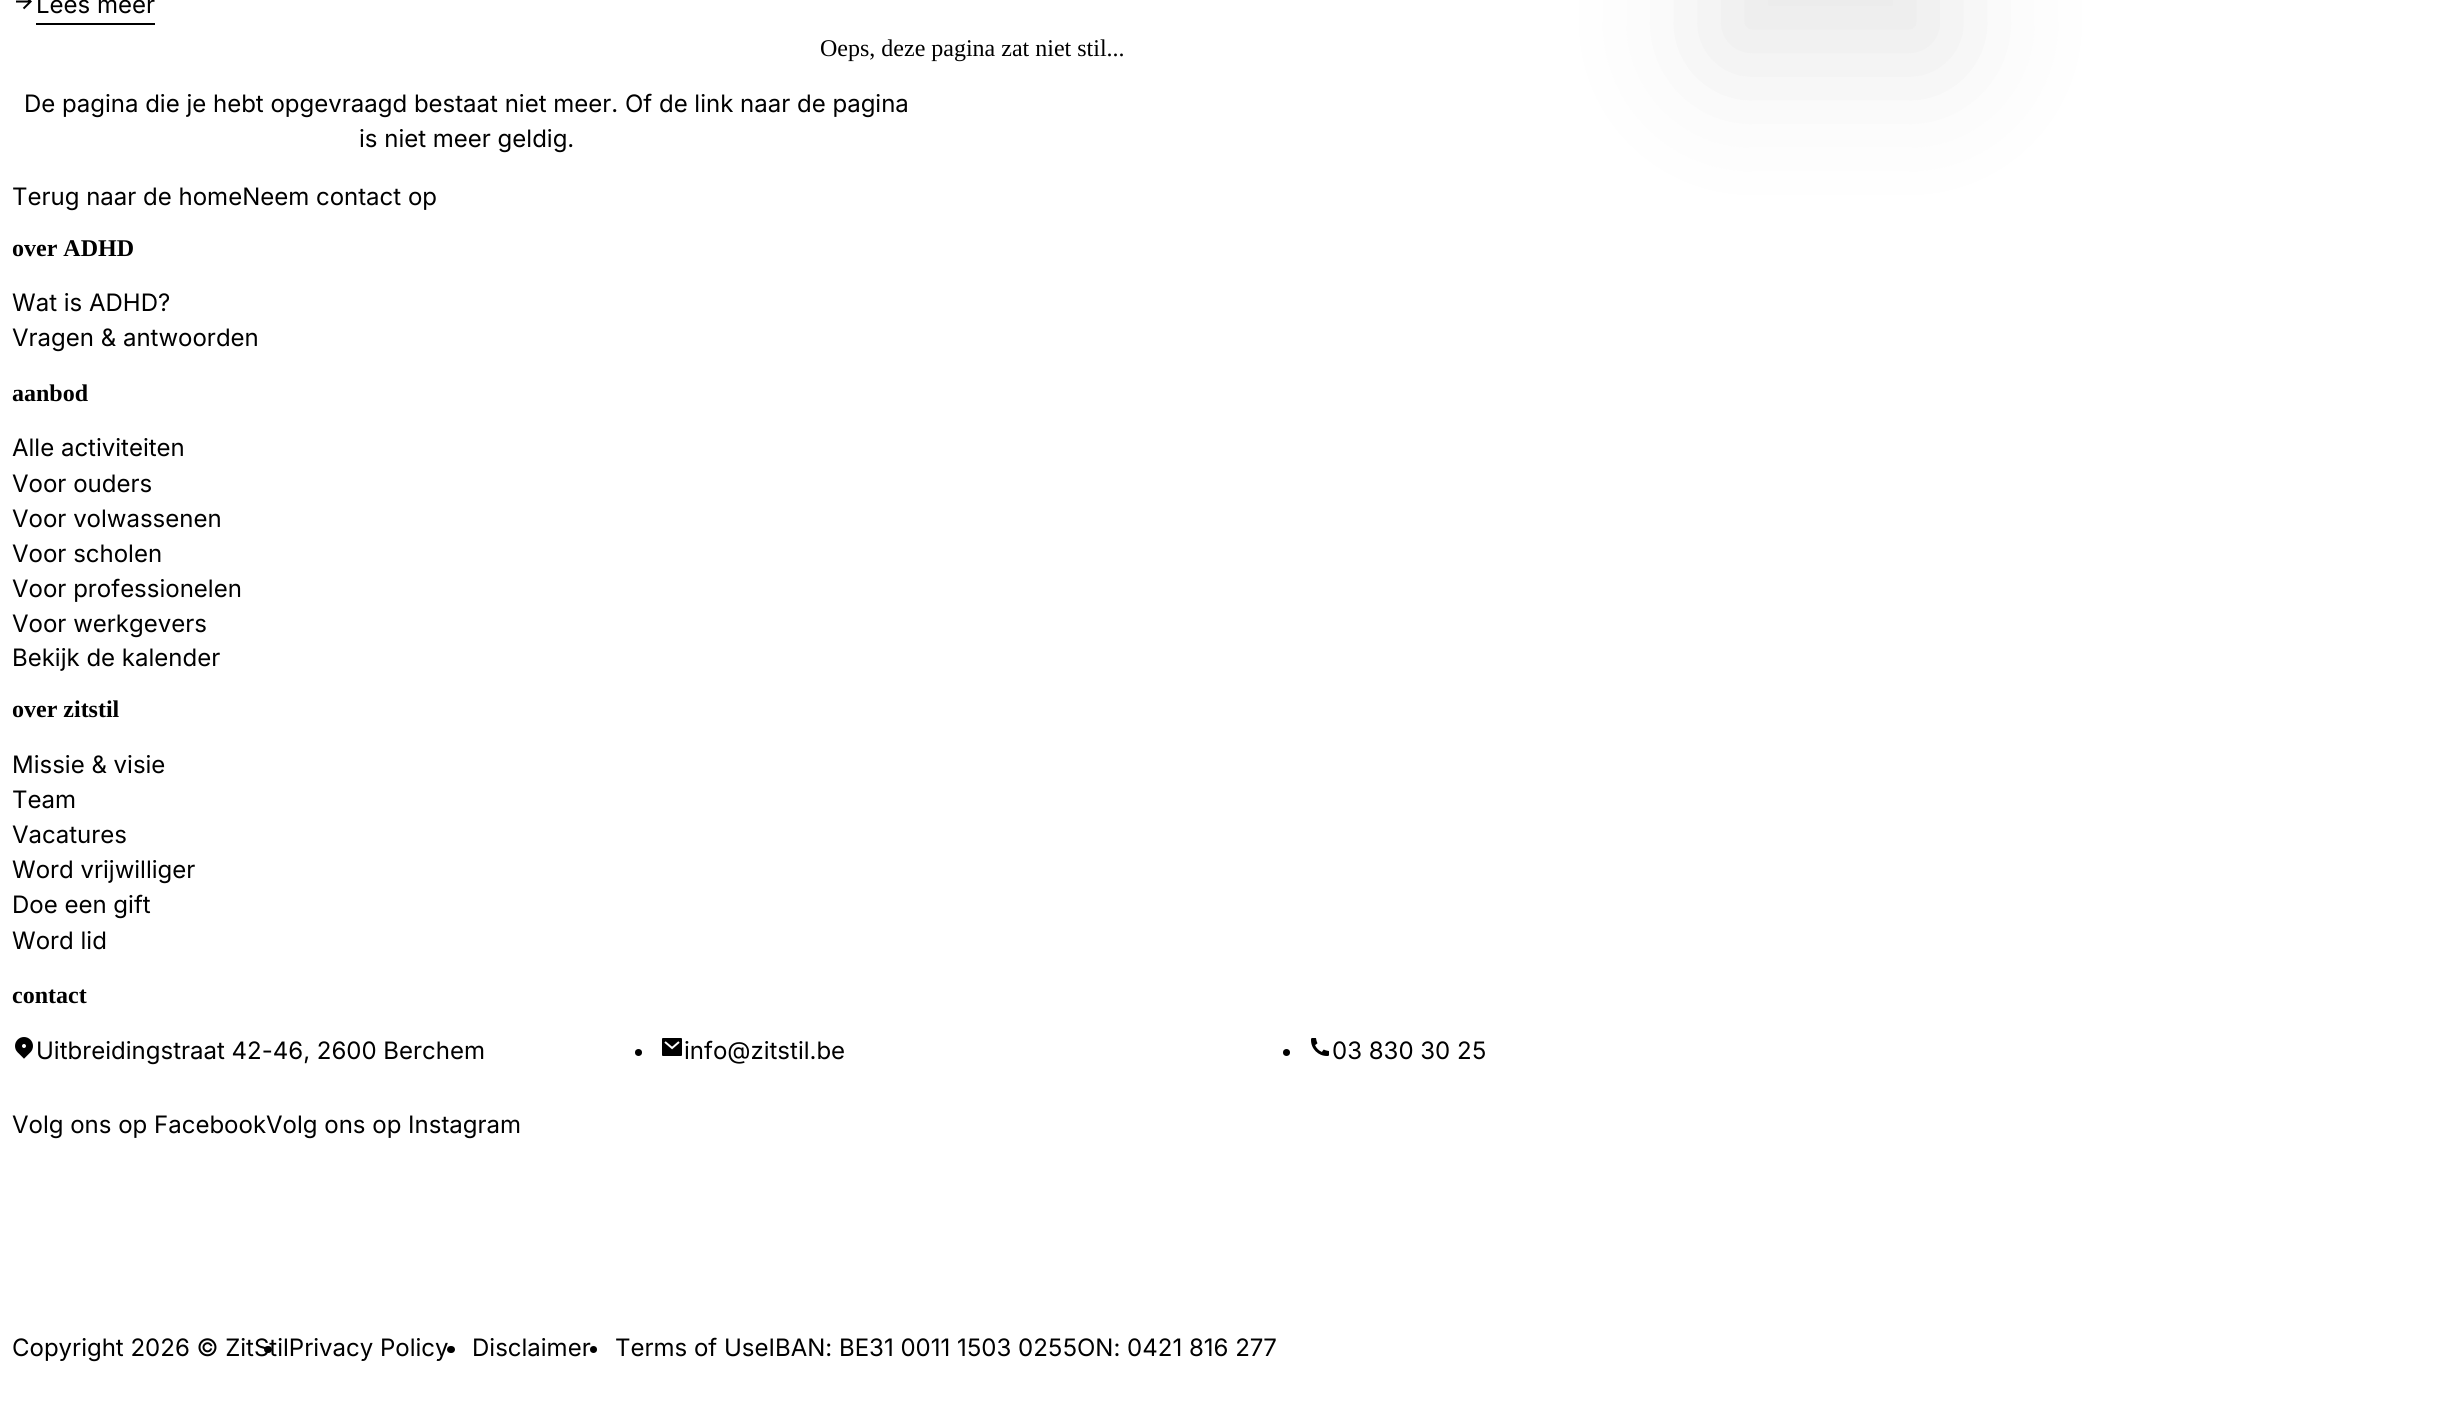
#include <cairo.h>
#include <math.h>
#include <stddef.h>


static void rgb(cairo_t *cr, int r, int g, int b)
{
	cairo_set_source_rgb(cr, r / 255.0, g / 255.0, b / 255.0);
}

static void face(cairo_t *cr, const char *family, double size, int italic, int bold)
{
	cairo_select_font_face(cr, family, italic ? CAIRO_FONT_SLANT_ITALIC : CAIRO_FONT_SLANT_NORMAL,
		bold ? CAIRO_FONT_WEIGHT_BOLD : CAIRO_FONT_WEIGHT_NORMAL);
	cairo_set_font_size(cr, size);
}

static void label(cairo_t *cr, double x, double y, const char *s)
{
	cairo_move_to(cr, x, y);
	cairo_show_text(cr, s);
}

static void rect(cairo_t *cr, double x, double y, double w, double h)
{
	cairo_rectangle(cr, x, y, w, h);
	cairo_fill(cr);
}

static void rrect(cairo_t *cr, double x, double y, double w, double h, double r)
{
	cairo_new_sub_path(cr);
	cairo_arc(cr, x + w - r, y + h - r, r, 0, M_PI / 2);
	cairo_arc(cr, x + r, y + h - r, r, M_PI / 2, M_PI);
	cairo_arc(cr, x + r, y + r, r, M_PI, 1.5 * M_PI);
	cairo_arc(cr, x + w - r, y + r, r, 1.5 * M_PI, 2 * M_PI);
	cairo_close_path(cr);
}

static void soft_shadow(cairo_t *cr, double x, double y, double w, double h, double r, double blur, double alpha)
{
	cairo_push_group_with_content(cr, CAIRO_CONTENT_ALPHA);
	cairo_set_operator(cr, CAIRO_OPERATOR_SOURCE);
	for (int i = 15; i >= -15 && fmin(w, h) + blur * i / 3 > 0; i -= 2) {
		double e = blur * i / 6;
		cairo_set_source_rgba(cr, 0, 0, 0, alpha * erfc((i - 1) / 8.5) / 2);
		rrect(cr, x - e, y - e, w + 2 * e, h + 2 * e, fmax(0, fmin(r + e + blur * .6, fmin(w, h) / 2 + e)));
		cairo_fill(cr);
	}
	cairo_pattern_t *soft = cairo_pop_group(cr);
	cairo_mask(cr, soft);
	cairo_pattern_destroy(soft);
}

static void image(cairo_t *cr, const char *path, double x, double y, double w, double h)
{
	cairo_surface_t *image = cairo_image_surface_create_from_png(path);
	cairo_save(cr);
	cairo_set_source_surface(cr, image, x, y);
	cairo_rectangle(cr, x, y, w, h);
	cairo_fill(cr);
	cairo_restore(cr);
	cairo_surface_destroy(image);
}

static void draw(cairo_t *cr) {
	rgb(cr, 255, 255, 255);
	cairo_paint(cr);
	image(cr, "image0.png", 16, 0, 16, 10);
	face(cr, "Inter", 24, 0, 0);
	rgb(cr, 0, 0, 0);
	label(cr, 36, 13, "Lees meer");
	rect(cr, 36, 23, 119, 2);
	rgb(cr, 0, 0, 0);
	soft_shadow(cr, 1709, -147, 243, 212, 0, 71, 0.09);
	face(cr, "Liberation Serif", 24, 0, 0);
	rgb(cr, 0, 0, 0);
	label(cr, 820, 56, "Oeps, deze pagina zat niet stil...");
	face(cr, "Inter", 24, 0, 0);
	label(cr, 24, 112, "De pagina die je hebt opgevraagd bestaat niet meer. Of de link naar de pagina");
	label(cr, 359, 147, "is niet meer geldig.");
	label(cr, 12, 205, "Terug naar de homeNeem contact op");
	face(cr, "Liberation Serif", 24, 0, 1);
	label(cr, 12, 256, "over ADHD");
	face(cr, "Inter", 24, 0, 0);
	label(cr, 12, 311, "Wat is ADHD?");
	label(cr, 12, 346, "Vragen & antwoorden");
	face(cr, "Liberation Serif", 24, 0, 1);
	label(cr, 12, 401, "aanbod");
	face(cr, "Inter", 24, 0, 0);
	label(cr, 12, 456, "Alle activiteiten");
	label(cr, 12, 492, "Voor ouders");
	label(cr, 12, 527, "Voor volwassenen");
	label(cr, 12, 562, "Voor scholen");
	label(cr, 12, 597, "Voor professionelen");
	label(cr, 12, 632, "Voor werkgevers");
	label(cr, 12, 666, "Bekijk de kalender");
	face(cr, "Liberation Serif", 24, 0, 1);
	label(cr, 12, 717, "over zitstil");
	face(cr, "Inter", 24, 0, 0);
	label(cr, 12, 773, "Missie & visie");
	label(cr, 12, 808, "Team");
	label(cr, 12, 843, "Vacatures");
	label(cr, 12, 878, "Word vrijwilliger");
	label(cr, 12, 913, "Doe een gift");
	label(cr, 12, 949, "Word lid");
	face(cr, "Liberation Serif", 24, 0, 1);
	label(cr, 12, 1003, "contact");
	image(cr, "image1.png", 15, 1037, 18, 22);
	face(cr, "Inter", 24, 0, 0);
	label(cr, 36, 1059, "Uitbreidingstraat 42-46, 2600 Berchem");
	cairo_new_path(cr);
	cairo_arc(cr, 638.5, 1052.5, 3.5, 0, 2 * M_PI);
	cairo_fill(cr);
	image(cr, "image2.png", 662, 1038, 20, 18);
	label(cr, 684, 1059, "info@zitstil.be");
	cairo_new_path(cr);
	cairo_arc(cr, 1286.5, 1052.5, 3.5, 0, 2 * M_PI);
	cairo_fill(cr);
	image(cr, "image3.png", 1311, 1038, 18, 18);
	label(cr, 1332, 1059, "03 830 30 25");
	label(cr, 12, 1133, "Volg ons op FacebookVolg ons op Instagram");
	label(cr, 12, 1356, "Copyright 2026 © ZitStilPrivacy Policy");
	rrect(cr, 264, 1346, 8, 7, 3.5);
	cairo_fill(cr);
	rrect(cr, 447, 1346, 8, 7, 3.5);
	cairo_fill(cr);
	label(cr, 472, 1356, "Disclaimer");
	cairo_new_path(cr);
	cairo_arc(cr, 593.5, 1349.5, 3.5, 0, 2 * M_PI);
	cairo_fill(cr);
	label(cr, 615, 1356, "Terms of UseIBAN: BE31 0011 1503 0255ON: 0421 816 277");
}

int main(void) {
	cairo_surface_t *surface = cairo_image_surface_create(CAIRO_FORMAT_RGB24, 2456, 1402);
	cairo_t *cr = cairo_create(surface);
	cairo_font_options_t *options = cairo_font_options_create();
	cairo_font_options_set_hint_metrics(options, CAIRO_HINT_METRICS_OFF);
	cairo_font_options_set_hint_style(options, CAIRO_HINT_STYLE_NONE);
	cairo_set_font_options(cr, options);
	cairo_set_miter_limit(cr, 4);
	draw(cr);
	cairo_surface_write_to_png(surface, "render.png");
	cairo_font_options_destroy(options);
	cairo_destroy(cr);
	cairo_surface_destroy(surface);
	return 0;
}
